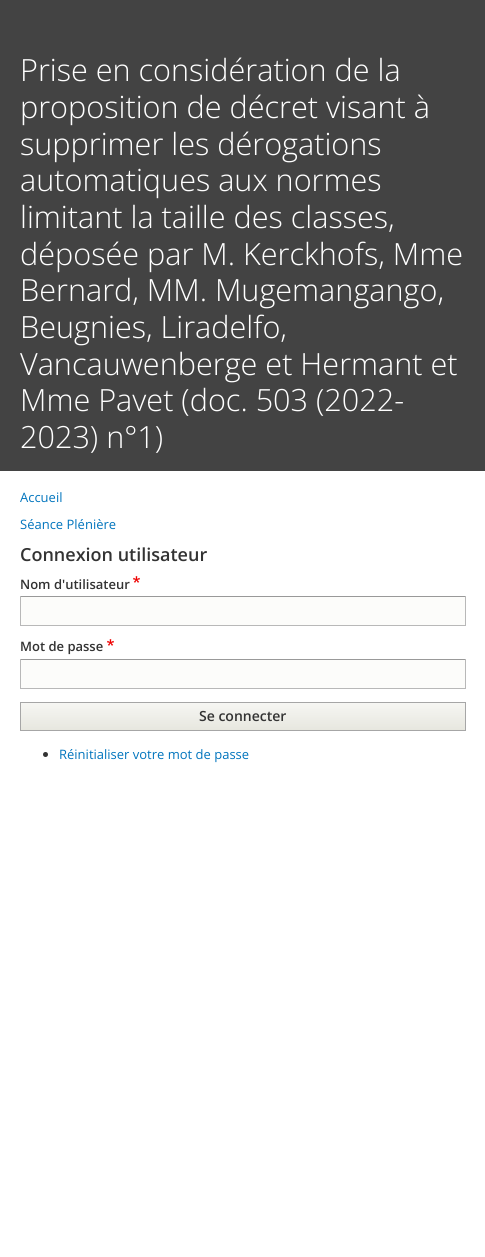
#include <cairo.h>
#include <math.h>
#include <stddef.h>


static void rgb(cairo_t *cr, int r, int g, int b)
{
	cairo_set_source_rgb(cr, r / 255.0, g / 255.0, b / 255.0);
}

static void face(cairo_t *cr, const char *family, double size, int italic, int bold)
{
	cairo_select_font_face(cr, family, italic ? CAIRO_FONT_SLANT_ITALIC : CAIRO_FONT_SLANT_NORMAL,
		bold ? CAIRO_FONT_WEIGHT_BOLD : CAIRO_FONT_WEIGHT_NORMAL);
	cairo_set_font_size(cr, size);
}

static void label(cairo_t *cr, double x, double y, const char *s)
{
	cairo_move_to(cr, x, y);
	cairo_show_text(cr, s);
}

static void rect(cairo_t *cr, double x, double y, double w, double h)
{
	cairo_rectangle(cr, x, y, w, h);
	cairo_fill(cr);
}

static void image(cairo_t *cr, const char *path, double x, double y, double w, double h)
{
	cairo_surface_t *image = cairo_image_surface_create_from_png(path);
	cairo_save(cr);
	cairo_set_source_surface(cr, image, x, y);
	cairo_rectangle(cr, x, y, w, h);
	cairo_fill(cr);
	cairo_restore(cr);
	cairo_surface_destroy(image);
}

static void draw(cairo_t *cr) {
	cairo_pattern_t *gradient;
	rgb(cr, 255, 255, 255);
	cairo_paint(cr);
	rgb(cr, 67, 67, 67);
	rect(cr, 0, 0, 485, 471);
	face(cr, "Open Sans Light", 30.6, 0, 0);
	rgb(cr, 255, 255, 255);
	label(cr, 20, 81, "Prise en considération de la");
	label(cr, 20, 118, "proposition de décret visant à");
	label(cr, 20, 155, "supprimer les dérogations");
	label(cr, 20, 191, "automatiques aux normes");
	label(cr, 20, 228, "limitant la taille des classes,");
	label(cr, 20, 265, "déposée par M. Kerckhofs, Mme");
	label(cr, 20, 301, "Bernard, MM. Mugemangango,");
	label(cr, 20, 338, "Beugnies, Liradelfo,");
	label(cr, 20, 375, "Vancauwenberge et Hermant et");
	label(cr, 20, 411, "Mme Pavet (doc. 503 (2022-");
	label(cr, 20, 448, "2023) n°1)");
	face(cr, "Open Sans", 13, 0, 0);
	rgb(cr, 0, 116, 189);
	label(cr, 20, 502, "Accueil");
	label(cr, 20, 529, "Séance Plénière");
	face(cr, "Open Sans SemiBold", 18, 0, 0);
	rgb(cr, 51, 51, 51);
	label(cr, 20, 561, "Connexion utilisateur");
	face(cr, "Open Sans SemiBold", 13, 0, 0);
	label(cr, 20, 589, "Nom d'utilisateur");
	image(cr, "image0.png", 133, 576, 7, 7);
	rgb(cr, 252, 252, 250);
	rect(cr, 21, 597, 444, 28);
	rgb(cr, 153, 153, 153);
	rect(cr, 20, 596, 446, 1);
	rgb(cr, 184, 184, 184);
	rect(cr, 465, 596, 1, 30);
	rect(cr, 20, 625, 446, 1);
	rect(cr, 20, 596, 1, 30);
	rgb(cr, 51, 51, 51);
	label(cr, 20, 651, "Mot de passe");
	image(cr, "image0.png", 107, 639, 7, 7);
	rgb(cr, 252, 252, 250);
	rect(cr, 21, 660, 444, 28);
	rgb(cr, 153, 153, 153);
	rect(cr, 20, 659, 446, 1);
	rgb(cr, 184, 184, 184);
	rect(cr, 465, 659, 1, 30);
	rect(cr, 20, 688, 446, 1);
	rect(cr, 20, 659, 1, 30);
	gradient = cairo_pattern_create_linear(243, 703, 243, 730);
	cairo_pattern_add_color_stop_rgba(gradient, 0, 0.965, 0.965, 0.953, 1);
	cairo_pattern_add_color_stop_rgba(gradient, 1, 0.906, 0.906, 0.875, 1);
	cairo_set_source(cr, gradient);
	cairo_pattern_destroy(gradient);
	rect(cr, 21, 703, 444, 27);
	cairo_rectangle(cr, 20.5, 702.5, 445, 28);
	rgb(cr, 166, 166, 166);
	cairo_set_line_width(cr, 1);
	cairo_stroke(cr);
	face(cr, "Open Sans SemiBold", 14, 0, 0);
	rgb(cr, 51, 51, 51);
	label(cr, 199, 721, "Se connecter");
	cairo_new_path(cr);
	cairo_arc(cr, 45.5, 754.5, 2.5, 0, 2 * M_PI);
	cairo_fill(cr);
	face(cr, "Open Sans", 13, 0, 0);
	rgb(cr, 0, 116, 189);
	label(cr, 59, 759, "Réinitialiser votre mot de passe");
}

int main(void) {
	cairo_surface_t *surface = cairo_image_surface_create(CAIRO_FORMAT_RGB24, 485, 1257);
	cairo_t *cr = cairo_create(surface);
	cairo_font_options_t *options = cairo_font_options_create();
	cairo_font_options_set_hint_metrics(options, CAIRO_HINT_METRICS_OFF);
	cairo_font_options_set_hint_style(options, CAIRO_HINT_STYLE_NONE);
	cairo_set_font_options(cr, options);
	cairo_set_miter_limit(cr, 4);
	draw(cr);
	cairo_surface_write_to_png(surface, "render.png");
	cairo_font_options_destroy(options);
	cairo_destroy(cr);
	cairo_surface_destroy(surface);
	return 0;
}
